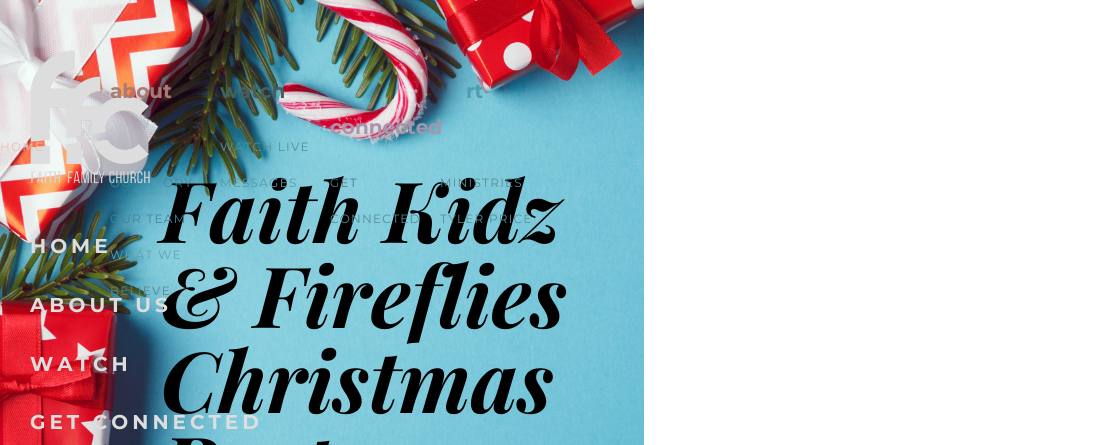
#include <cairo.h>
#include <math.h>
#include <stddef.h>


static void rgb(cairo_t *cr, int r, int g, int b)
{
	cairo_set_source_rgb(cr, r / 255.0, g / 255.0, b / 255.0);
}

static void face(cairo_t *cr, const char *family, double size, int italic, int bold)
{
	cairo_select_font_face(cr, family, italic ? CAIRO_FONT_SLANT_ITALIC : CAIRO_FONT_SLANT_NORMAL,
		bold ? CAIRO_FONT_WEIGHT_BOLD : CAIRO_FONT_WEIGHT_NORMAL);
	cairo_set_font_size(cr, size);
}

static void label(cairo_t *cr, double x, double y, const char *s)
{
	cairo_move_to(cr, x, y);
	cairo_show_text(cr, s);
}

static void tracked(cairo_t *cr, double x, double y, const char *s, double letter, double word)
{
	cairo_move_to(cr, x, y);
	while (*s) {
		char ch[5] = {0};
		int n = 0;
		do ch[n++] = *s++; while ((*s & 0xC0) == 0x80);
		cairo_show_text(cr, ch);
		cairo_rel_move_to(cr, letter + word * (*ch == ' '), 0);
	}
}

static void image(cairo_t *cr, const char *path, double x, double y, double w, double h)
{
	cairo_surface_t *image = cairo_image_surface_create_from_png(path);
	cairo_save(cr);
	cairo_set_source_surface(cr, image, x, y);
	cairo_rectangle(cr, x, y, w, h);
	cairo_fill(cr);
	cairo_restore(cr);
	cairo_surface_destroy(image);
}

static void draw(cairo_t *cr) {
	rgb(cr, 255, 255, 255);
	cairo_paint(cr);
	image(cr, "image0.png", 0, 0, 644, 445);
	image(cr, "image1.png", 30, 50, 120, 134);
	face(cr, "Montserrat", 12, 0, 0);
	rgb(cr, 232, 193, 184);
	tracked(cr, 0, 151, "HOME", 1.25, 0);
	face(cr, "Montserrat", 20, 0, 1);
	rgb(cr, 170, 123, 116);
	label(cr, 110, 98, "about");
	face(cr, "Montserrat", 12, 0, 0);
	rgb(cr, 64, 132, 154);
	tracked(cr, 110, 187, "OU", 1.25, 0);
	tracked(cr, 163, 187, "ORY", 1.25, 0);
	tracked(cr, 110, 223, "OUR TEAM", 1.25, 0);
	rgb(cr, 96, 161, 177);
	tracked(cr, 110, 259, "WHAT WE", 1.25, 0);
	rgb(cr, 89, 135, 131);
	tracked(cr, 110, 295, "BELIEVE", 1.25, 0);
	face(cr, "Montserrat", 20, 0, 1);
	rgb(cr, 68, 96, 93);
	label(cr, 220, 98, "watch");
	face(cr, "Montserrat", 12, 0, 0);
	rgb(cr, 84, 144, 151);
	tracked(cr, 220, 151, "WATCH LIVE", 1.25, 0);
	rgb(cr, 90, 151, 161);
	tracked(cr, 220, 187, "MESSAGES", 1.25, 0);
	face(cr, "Montserrat", 20, 0, 1);
	rgb(cr, 164, 150, 171);
	label(cr, 330, 134, "connected");
	face(cr, "Montserrat", 12, 0, 0);
	rgb(cr, 80, 123, 132);
	tracked(cr, 330, 187, "GET", 1.25, 0);
	rgb(cr, 89, 138, 148);
	tracked(cr, 330, 223, "CONNECTED", 1.25, 0);
	face(cr, "Montserrat", 20, 0, 1);
	rgb(cr, 82, 155, 179);
	label(cr, 466, 98, "rt");
	face(cr, "Montserrat", 12, 0, 0);
	rgb(cr, 89, 138, 148);
	tracked(cr, 440, 187, "MINISTRIES", 1.25, 0);
	rgb(cr, 84, 144, 151);
	tracked(cr, 440, 223, "TYLER PRICE", 1.25, 0);
	face(cr, "Montserrat", 20, 0, 1);
	rgb(cr, 221, 221, 221);
	tracked(cr, 30, 253, "HOME", 4, 0);
	tracked(cr, 30, 312, "ABOUT US", 4, 0);
	tracked(cr, 30, 371, "WATCH", 4, 0);
	tracked(cr, 30, 429, "GET CONNECTED", 4, 0);
}

int main(void) {
	cairo_surface_t *surface = cairo_image_surface_create(CAIRO_FORMAT_RGB24, 1099, 445);
	cairo_t *cr = cairo_create(surface);
	cairo_font_options_t *options = cairo_font_options_create();
	cairo_font_options_set_hint_metrics(options, CAIRO_HINT_METRICS_OFF);
	cairo_font_options_set_hint_style(options, CAIRO_HINT_STYLE_NONE);
	cairo_set_font_options(cr, options);
	cairo_set_miter_limit(cr, 4);
	draw(cr);
	cairo_surface_write_to_png(surface, "render.png");
	cairo_font_options_destroy(options);
	cairo_destroy(cr);
	cairo_surface_destroy(surface);
	return 0;
}
